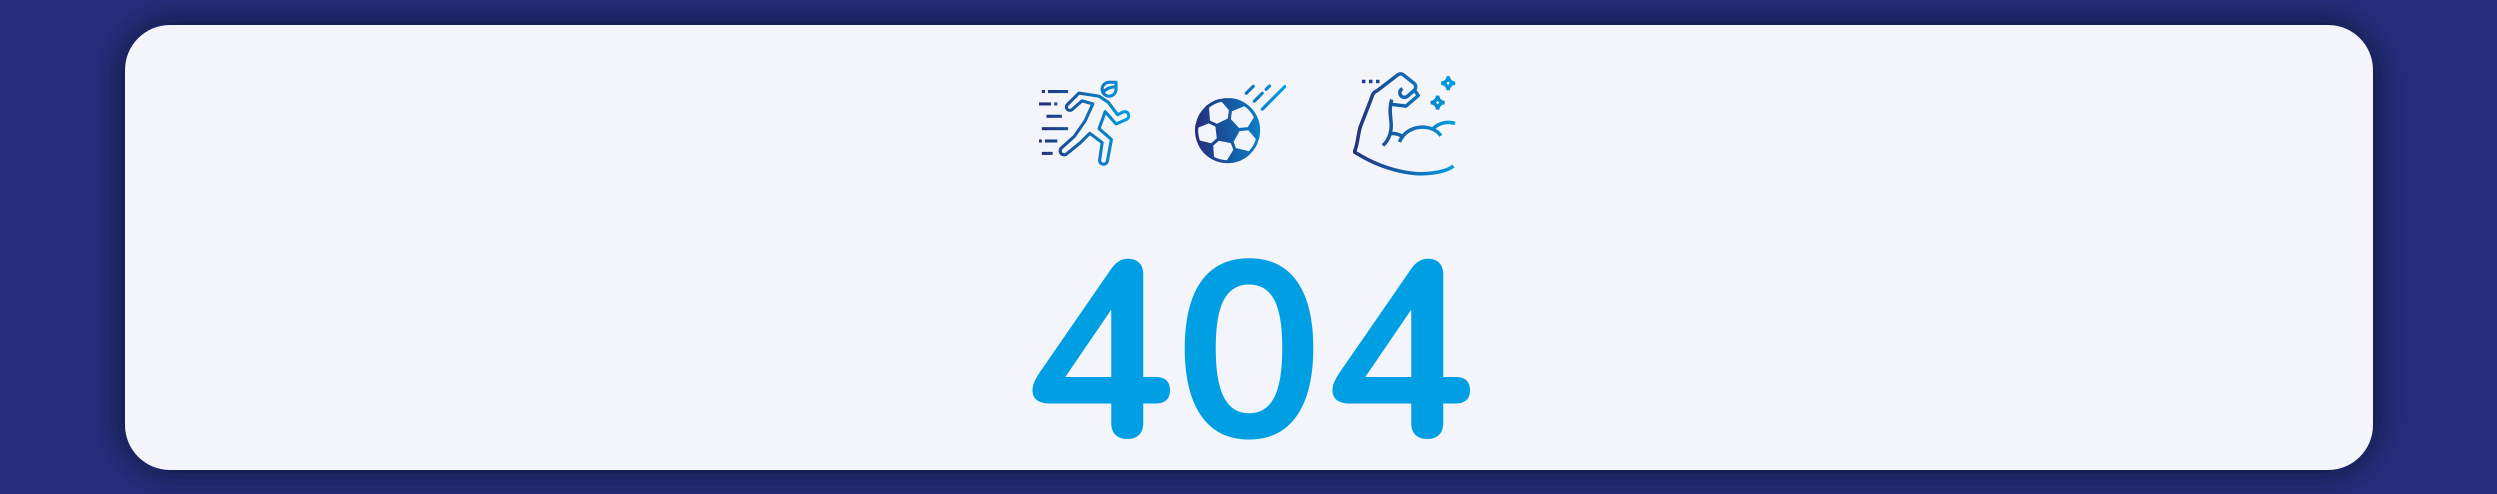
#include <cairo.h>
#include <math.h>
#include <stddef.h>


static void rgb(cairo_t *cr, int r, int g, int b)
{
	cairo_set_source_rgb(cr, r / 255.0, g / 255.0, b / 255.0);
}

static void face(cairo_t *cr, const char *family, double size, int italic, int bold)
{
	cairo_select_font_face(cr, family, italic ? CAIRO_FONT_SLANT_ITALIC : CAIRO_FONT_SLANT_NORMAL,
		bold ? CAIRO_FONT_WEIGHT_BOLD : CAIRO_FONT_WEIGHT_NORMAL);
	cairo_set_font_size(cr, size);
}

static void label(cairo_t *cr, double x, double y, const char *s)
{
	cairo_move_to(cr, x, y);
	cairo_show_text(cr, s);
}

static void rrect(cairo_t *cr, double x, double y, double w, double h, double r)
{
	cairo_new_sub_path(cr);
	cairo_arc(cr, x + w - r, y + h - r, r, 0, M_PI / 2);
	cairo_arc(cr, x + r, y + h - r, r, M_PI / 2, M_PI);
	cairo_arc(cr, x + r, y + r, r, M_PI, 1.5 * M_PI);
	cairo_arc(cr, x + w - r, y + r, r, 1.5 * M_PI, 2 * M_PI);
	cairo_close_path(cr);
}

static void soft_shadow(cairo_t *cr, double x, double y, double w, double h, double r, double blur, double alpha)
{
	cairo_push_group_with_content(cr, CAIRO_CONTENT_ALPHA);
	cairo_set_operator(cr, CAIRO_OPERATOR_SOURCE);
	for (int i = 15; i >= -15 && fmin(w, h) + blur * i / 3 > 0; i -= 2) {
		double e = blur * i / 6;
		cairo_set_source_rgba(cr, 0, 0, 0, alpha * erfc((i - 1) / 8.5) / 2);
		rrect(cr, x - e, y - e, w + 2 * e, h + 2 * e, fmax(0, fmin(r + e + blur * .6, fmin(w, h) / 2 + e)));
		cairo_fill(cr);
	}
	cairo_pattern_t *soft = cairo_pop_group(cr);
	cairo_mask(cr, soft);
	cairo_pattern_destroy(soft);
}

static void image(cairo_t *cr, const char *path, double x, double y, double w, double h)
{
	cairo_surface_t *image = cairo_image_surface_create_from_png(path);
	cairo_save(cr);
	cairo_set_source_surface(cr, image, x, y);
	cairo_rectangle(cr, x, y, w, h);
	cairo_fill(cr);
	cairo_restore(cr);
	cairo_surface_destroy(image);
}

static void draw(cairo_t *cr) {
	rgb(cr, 36, 46, 124);
	cairo_paint(cr);
	rgb(cr, 0, 0, 0);
	soft_shadow(cr, 125, 25, 2248, 445, 45, 19, 0.6);
	rgb(cr, 243, 245, 251);
	rrect(cr, 125, 25, 2248, 445, 45);
	cairo_fill(cr);
	image(cr, "image0.png", 1039, 80, 91, 86);
	image(cr, "image1.png", 1195, 84, 91, 80);
	image(cr, "image2.png", 1353, 72, 103, 104);
	face(cr, "Nunito", 250, 0, 1);
	rgb(cr, 0, 159, 227);
	label(cr, 1024, 437, "404");
}

int main(void) {
	cairo_surface_t *surface = cairo_image_surface_create(CAIRO_FORMAT_RGB24, 2497, 494);
	cairo_t *cr = cairo_create(surface);
	cairo_font_options_t *options = cairo_font_options_create();
	cairo_font_options_set_hint_metrics(options, CAIRO_HINT_METRICS_OFF);
	cairo_font_options_set_hint_style(options, CAIRO_HINT_STYLE_NONE);
	cairo_set_font_options(cr, options);
	cairo_set_miter_limit(cr, 4);
	draw(cr);
	cairo_surface_write_to_png(surface, "render.png");
	cairo_font_options_destroy(options);
	cairo_destroy(cr);
	cairo_surface_destroy(surface);
	return 0;
}
